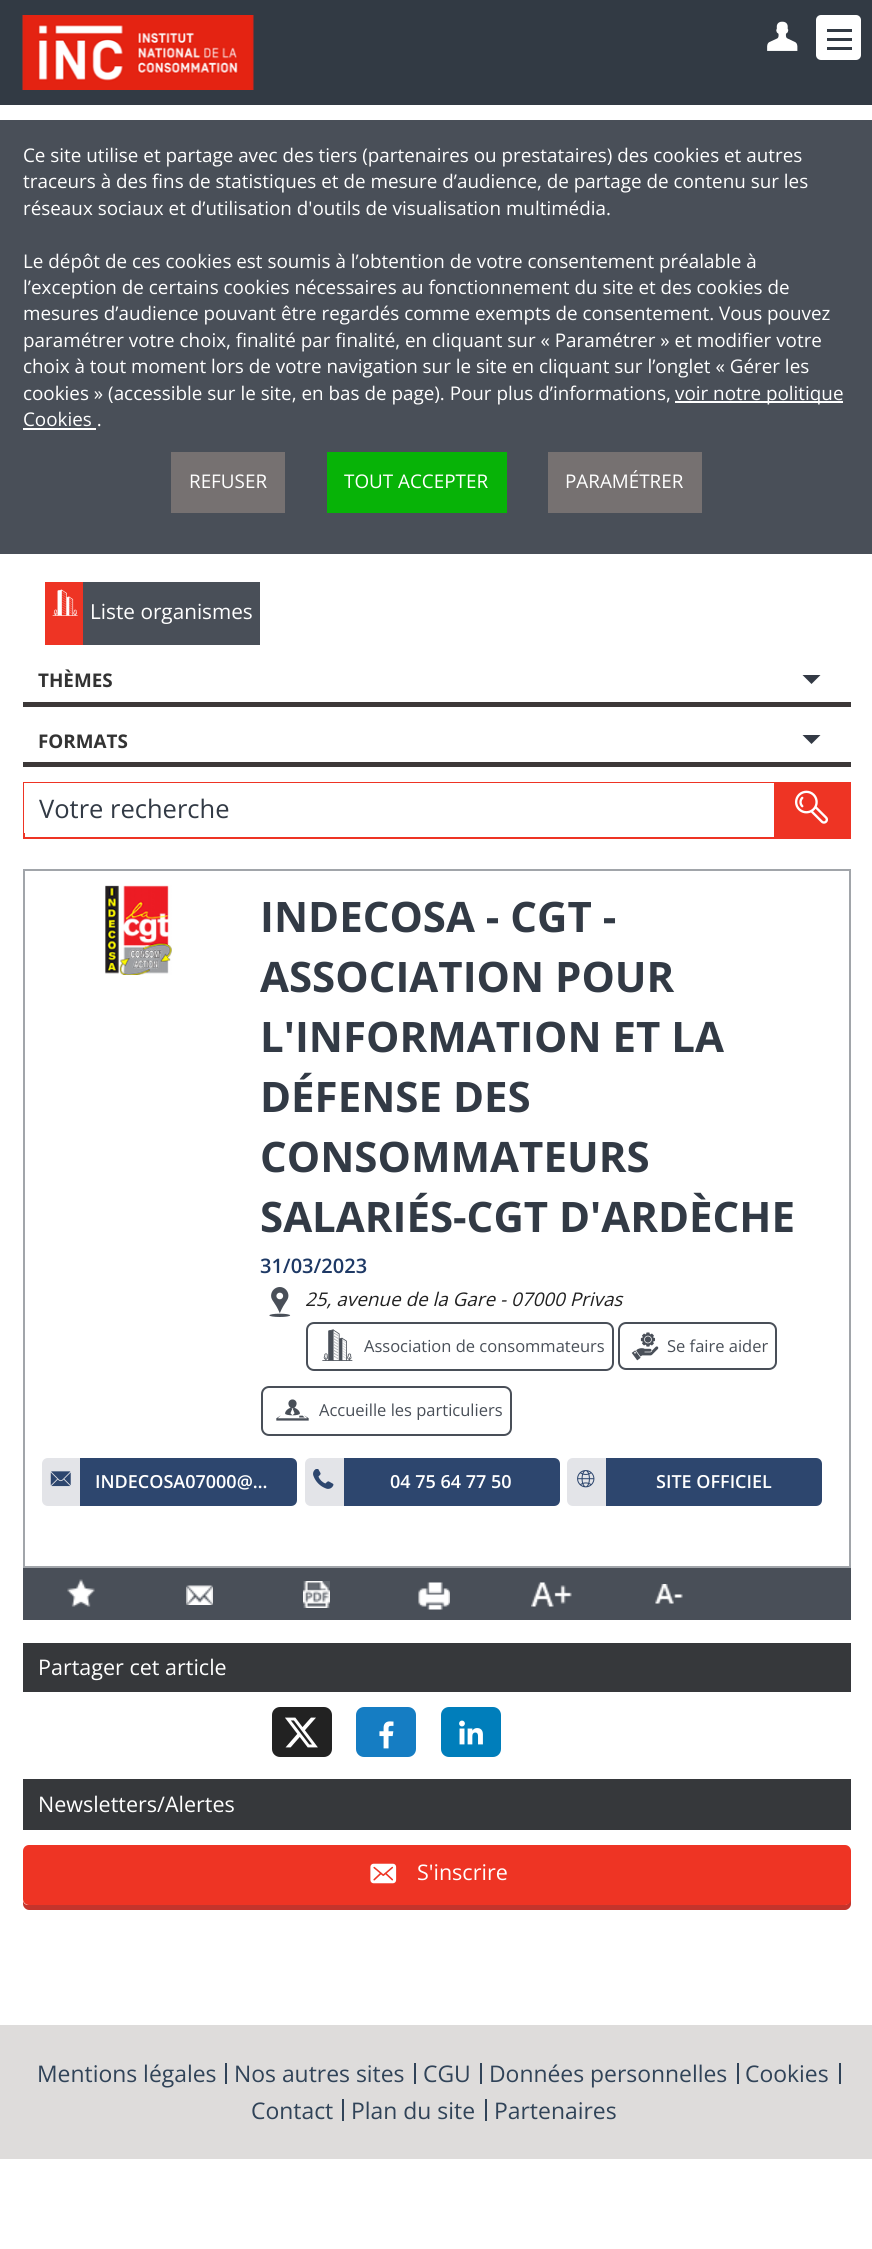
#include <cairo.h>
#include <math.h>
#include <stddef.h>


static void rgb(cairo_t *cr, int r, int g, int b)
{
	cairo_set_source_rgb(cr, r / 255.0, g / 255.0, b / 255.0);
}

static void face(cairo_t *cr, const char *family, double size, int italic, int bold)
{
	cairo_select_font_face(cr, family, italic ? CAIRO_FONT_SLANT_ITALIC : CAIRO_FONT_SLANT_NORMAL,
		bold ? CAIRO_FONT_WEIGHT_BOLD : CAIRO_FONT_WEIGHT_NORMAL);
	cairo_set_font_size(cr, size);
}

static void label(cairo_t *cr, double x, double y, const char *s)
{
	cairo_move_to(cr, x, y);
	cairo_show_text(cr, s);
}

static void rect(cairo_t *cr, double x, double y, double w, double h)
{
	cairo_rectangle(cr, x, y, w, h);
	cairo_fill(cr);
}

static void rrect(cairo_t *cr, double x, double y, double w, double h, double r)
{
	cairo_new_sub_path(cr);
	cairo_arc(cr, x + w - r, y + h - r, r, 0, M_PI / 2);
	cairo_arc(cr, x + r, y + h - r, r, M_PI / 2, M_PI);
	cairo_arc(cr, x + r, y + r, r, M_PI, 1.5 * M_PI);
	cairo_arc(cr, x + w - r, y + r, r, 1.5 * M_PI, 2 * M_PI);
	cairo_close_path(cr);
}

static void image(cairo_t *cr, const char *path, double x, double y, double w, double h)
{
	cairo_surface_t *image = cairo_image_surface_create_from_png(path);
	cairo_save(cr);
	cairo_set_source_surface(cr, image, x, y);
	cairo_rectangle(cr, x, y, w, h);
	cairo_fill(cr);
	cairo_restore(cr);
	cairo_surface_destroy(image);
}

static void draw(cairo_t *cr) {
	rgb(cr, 255, 255, 255);
	cairo_paint(cr);
	rgb(cr, 50, 58, 68);
	rect(cr, 0, 0, 872, 105);
	image(cr, "image0.png", 22, 15, 232, 75);
	image(cr, "image1.png", 767, 21, 31, 30);
	rgb(cr, 255, 255, 255);
	rrect(cr, 816, 15, 45, 45, 5);
	cairo_fill(cr);
	rgb(cr, 50, 58, 68);
	rect(cr, 827, 47, 25, 3);
	rect(cr, 827, 38, 25, 3);
	rect(cr, 827, 29, 25, 3);
	rgb(cr, 73, 79, 88);
	rect(cr, 0, 120, 872, 434);
	face(cr, "Open Sans", 18.85, 0, 0);
	rgb(cr, 255, 255, 255);
	label(cr, 23, 162, "Ce site utilise et partage avec des tiers (partenaires ou prestataires) des cookies et autres");
	label(cr, 23, 188, "traceurs à des fins de statistiques et de mesure d’audience, de partage de contenu sur les");
	label(cr, 23, 215, "réseaux sociaux et d’utilisation d'outils de visualisation multimédia.");
	label(cr, 23, 268, "Le dépôt de ces cookies est soumis à l’obtention de votre consentement préalable à");
	label(cr, 23, 294, "l’exception de certains cookies nécessaires au fonctionnement du site et des cookies de");
	label(cr, 23, 320, "mesures d’audience pouvant être regardés comme exempts de consentement. Vous pouvez");
	label(cr, 23, 347, "paramétrer votre choix, finalité par finalité, en cliquant sur « Paramétrer » et modifier votre");
	label(cr, 23, 373, "choix à tout moment lors de votre navigation sur le site en cliquant sur l’onglet « Gérer les");
	label(cr, 23, 400, "cookies » (accessible sur le site, en bas de page). Pour plus d’informations,");
	rect(cr, 675, 401, 168, 2);
	label(cr, 675, 400, "voir notre politique");
	label(cr, 23, 426, "Cookies .");
	rect(cr, 23, 428, 73, 2);
	rgb(cr, 118, 113, 113);
	rect(cr, 171, 452, 114, 61);
	rgb(cr, 255, 255, 255);
	label(cr, 189, 488, "REFUSER");
	rgb(cr, 7, 179, 7);
	rect(cr, 327, 452, 180, 61);
	rgb(cr, 255, 255, 255);
	label(cr, 344, 488, "TOUT ACCEPTER");
	rgb(cr, 118, 113, 113);
	rect(cr, 548, 452, 154, 61);
	rgb(cr, 255, 255, 255);
	label(cr, 565, 488, "PARAMÉTRER");
	rgb(cr, 73, 79, 88);
	rect(cr, 83, 582, 177, 63);
	rgb(cr, 238, 52, 36);
	rect(cr, 45, 582, 38, 63);
	image(cr, "image2.png", 52, 589, 26, 27);
	face(cr, "Open Sans", 20.75, 0, 0);
	rgb(cr, 255, 255, 255);
	label(cr, 90, 619, "Liste organismes");
	rgb(cr, 60, 56, 56);
	rect(cr, 23, 702, 828, 5);
	face(cr, "Open Sans", 18.85, 0, 1);
	rgb(cr, 51, 51, 51);
	label(cr, 38, 687, "THÈMES");
	rgb(cr, 51, 58, 69);
	cairo_new_path(cr);
	cairo_move_to(cr, 802.5, 675);
	cairo_line_to(cr, 820.5, 675);
	cairo_line_to(cr, 811.5, 684);
	cairo_close_path(cr);
	cairo_fill(cr);
	rgb(cr, 60, 56, 56);
	rect(cr, 23, 762, 828, 5);
	rgb(cr, 51, 51, 51);
	label(cr, 38, 748, "FORMATS");
	rgb(cr, 51, 58, 69);
	cairo_new_path(cr);
	cairo_move_to(cr, 802.5, 735);
	cairo_line_to(cr, 820.5, 735);
	cairo_line_to(cr, 811.5, 744);
	cairo_close_path(cr);
	cairo_fill(cr);
	cairo_rectangle(cr, 24, 783, 826, 55);
	rgb(cr, 238, 52, 36);
	cairo_stroke(cr);
	rgb(cr, 255, 255, 255);
	rect(cr, 24, 783, 750, 50);
	face(cr, "Open Sans", 25.5, 0, 0);
	rgb(cr, 50, 58, 69);
	label(cr, 39, 818, "Votre recherche");
	rgb(cr, 238, 52, 36);
	rect(cr, 774, 784, 75, 53);
	image(cr, "image3.png", 795, 790, 33, 34);
	cairo_rectangle(cr, 24, 870, 826, 697);
	rgb(cr, 161, 165, 170);
	cairo_stroke(cr);
	image(cr, "image4.png", 105, 885, 67, 90);
	face(cr, "Open Sans", 42, 0, 1);
	rgb(cr, 50, 58, 69);
	label(cr, 260, 932, "INDECOSA - CGT -");
	label(cr, 260, 992, "ASSOCIATION POUR");
	label(cr, 260, 1052, "L'INFORMATION ET LA");
	label(cr, 260, 1112, "DÉFENSE DES");
	label(cr, 260, 1172, "CONSOMMATEURS");
	label(cr, 260, 1232, "SALARIÉS-CGT D'ARDÈCHE");
	face(cr, "Open Sans SemiBold", 20, 0, 0);
	rgb(cr, 30, 57, 101);
	label(cr, 260, 1273, "31/03/2023");
	image(cr, "image5.png", 269, 1287, 22, 30);
	face(cr, "Open Sans", 18.85, 1, 0);
	rgb(cr, 33, 33, 33);
	label(cr, 305, 1306, "25, avenue de la Gare - 07000 Privas");
	rrect(cr, 307, 1323, 306, 47, 7);
	rgb(cr, 73, 79, 88);
	cairo_stroke(cr);
	image(cr, "image6.png", 322, 1329, 31, 32);
	face(cr, "Open Sans", 16.5, 0, 0);
	label(cr, 364, 1352, "Association de consommateurs");
	rrect(cr, 619, 1323, 157, 46, 7);
	cairo_stroke(cr);
	image(cr, "image7.png", 631, 1332, 28, 29);
	label(cr, 667, 1352, "Se faire aider");
	rrect(cr, 262, 1387, 249, 48, 7);
	cairo_stroke(cr);
	image(cr, "image8.png", 276, 1399, 33, 22);
	label(cr, 319, 1416, "Accueille les particuliers");
	rgb(cr, 227, 228, 232);
	cairo_new_path(cr);
	cairo_move_to(cr, 48, 1458);
	cairo_line_to(cr, 80, 1458);
	cairo_line_to(cr, 80, 1506);
	cairo_line_to(cr, 48, 1506);
	cairo_curve_to(cr, 44.5, 1506, 42, 1503.5, 42, 1500);
	cairo_line_to(cr, 42, 1464);
	cairo_curve_to(cr, 42, 1460.5, 44.5, 1458, 48, 1458);
	cairo_close_path(cr);
	cairo_fill(cr);
	image(cr, "image9.png", 50, 1471, 21, 16);
	rgb(cr, 45, 70, 110);
	cairo_new_path(cr);
	cairo_move_to(cr, 80, 1458);
	cairo_line_to(cr, 291, 1458);
	cairo_curve_to(cr, 294.5, 1458, 297, 1460.5, 297, 1464);
	cairo_line_to(cr, 297, 1500);
	cairo_curve_to(cr, 297, 1503.5, 294.5, 1506, 291, 1506);
	cairo_line_to(cr, 80, 1506);
	cairo_close_path(cr);
	cairo_fill(cr);
	face(cr, "Open Sans SemiBold", 18, 0, 0);
	rgb(cr, 255, 255, 255);
	label(cr, 95, 1488, "INDECOSA07000@…");
	rgb(cr, 227, 228, 232);
	cairo_new_path(cr);
	cairo_move_to(cr, 311, 1458);
	cairo_line_to(cr, 344, 1458);
	cairo_line_to(cr, 344, 1506);
	cairo_line_to(cr, 311, 1506);
	cairo_curve_to(cr, 307.5, 1506, 305, 1503.5, 305, 1500);
	cairo_line_to(cr, 305, 1464);
	cairo_curve_to(cr, 305, 1460.5, 307.5, 1458, 311, 1458);
	cairo_close_path(cr);
	cairo_fill(cr);
	image(cr, "image10.png", 313, 1469, 21, 20);
	rgb(cr, 45, 70, 110);
	cairo_new_path(cr);
	cairo_move_to(cr, 344, 1458);
	cairo_line_to(cr, 554, 1458);
	cairo_curve_to(cr, 557.5, 1458, 560, 1460.5, 560, 1464);
	cairo_line_to(cr, 560, 1500);
	cairo_curve_to(cr, 560, 1503.5, 557.5, 1506, 554, 1506);
	cairo_line_to(cr, 344, 1506);
	cairo_close_path(cr);
	cairo_fill(cr);
	rgb(cr, 255, 255, 255);
	label(cr, 390, 1488, "04 75 64 77 50");
	rgb(cr, 227, 228, 232);
	cairo_new_path(cr);
	cairo_move_to(cr, 573, 1458);
	cairo_line_to(cr, 606, 1458);
	cairo_line_to(cr, 606, 1506);
	cairo_line_to(cr, 573, 1506);
	cairo_curve_to(cr, 569.5, 1506, 567, 1503.5, 567, 1500);
	cairo_line_to(cr, 567, 1464);
	cairo_curve_to(cr, 567, 1460.5, 569.5, 1458, 573, 1458);
	cairo_close_path(cr);
	cairo_fill(cr);
	image(cr, "image11.png", 577, 1470, 18, 18);
	rgb(cr, 45, 70, 110);
	cairo_new_path(cr);
	cairo_move_to(cr, 606, 1458);
	cairo_line_to(cr, 816, 1458);
	cairo_curve_to(cr, 819.5, 1458, 822, 1460.5, 822, 1464);
	cairo_line_to(cr, 822, 1500);
	cairo_curve_to(cr, 822, 1503.5, 819.5, 1506, 816, 1506);
	cairo_line_to(cr, 606, 1506);
	cairo_close_path(cr);
	cairo_fill(cr);
	rgb(cr, 255, 255, 255);
	label(cr, 656, 1488, "SITE OFFICIEL");
	rgb(cr, 73, 79, 88);
	rect(cr, 23, 1568, 828, 52);
	image(cr, "image12.png", 67, 1579, 28, 28);
	image(cr, "image13.png", 186, 1585, 27, 20);
	image(cr, "image14.png", 303, 1581, 27, 27);
	image(cr, "image15.png", 418, 1582, 32, 28);
	image(cr, "image16.png", 531, 1582, 41, 25);
	image(cr, "image17.png", 655, 1584, 28, 20);
	rgb(cr, 54, 56, 59);
	rect(cr, 23, 1643, 828, 49);
	face(cr, "Open Sans", 21.5, 0, 0);
	rgb(cr, 255, 255, 255);
	label(cr, 38, 1675, "Partager cet article");
	rgb(cr, 34, 34, 34);
	rrect(cr, 272, 1707, 60, 50, 8);
	cairo_fill(cr);
	image(cr, "image18.png", 285, 1717, 33, 31);
	rgb(cr, 21, 125, 195);
	rrect(cr, 356, 1707, 60, 50, 8);
	cairo_fill(cr);
	image(cr, "image19.png", 379, 1721, 15, 28);
	rgb(cr, 0, 126, 187);
	rrect(cr, 441, 1707, 60, 50, 8);
	cairo_fill(cr);
	image(cr, "image20.png", 459, 1720, 24, 25);
	rgb(cr, 54, 56, 59);
	rect(cr, 23, 1779, 828, 51);
	rgb(cr, 255, 255, 255);
	label(cr, 38, 1812, "Newsletters/Alertes");
	rgb(cr, 195, 52, 44);
	cairo_new_path(cr);
	cairo_move_to(cr, 23, 1901);
	cairo_line_to(cr, 23, 1904);
	cairo_curve_to(cr, 23, 1907, 26, 1910, 29, 1910);
	cairo_line_to(cr, 845, 1910);
	cairo_curve_to(cr, 848, 1910, 851, 1907, 851, 1904);
	cairo_line_to(cr, 851, 1856);
	cairo_line_to(cr, 850, 1854);
	cairo_line_to(cr, 850, 1899);
	cairo_curve_to(cr, 850, 1902, 848, 1905, 844, 1905);
	cairo_line_to(cr, 28, 1905);
	cairo_curve_to(cr, 26, 1905, 24, 1904, 23, 1901);
	cairo_close_path(cr);
	cairo_fill(cr);
	rgb(cr, 238, 52, 36);
	rrect(cr, 23, 1845, 828, 60, 6);
	cairo_fill(cr);
	image(cr, "image21.png", 370, 1863, 27, 21);
	rgb(cr, 255, 255, 255);
	label(cr, 417, 1880, "S'inscrire");
	rgb(cr, 222, 220, 219);
	rect(cr, 0, 2025, 872, 134);
	rgb(cr, 48, 67, 88);
	rect(cr, 225, 2063, 2, 21);
	face(cr, "Open Sans", 22.9, 0, 0);
	label(cr, 37, 2082, "Mentions légales");
	rect(cr, 414, 2063, 2, 21);
	label(cr, 234, 2082, "Nos autres sites");
	rect(cr, 480, 2063, 2, 21);
	label(cr, 423, 2082, "CGU");
	rect(cr, 737, 2063, 2, 21);
	label(cr, 489, 2082, "Données personnelles");
	rect(cr, 839, 2063, 2, 21);
	label(cr, 745, 2082, "Cookies");
	rect(cr, 342, 2099, 2, 22);
	label(cr, 251, 2119, "Contact");
	rect(cr, 485, 2099, 2, 22);
	label(cr, 351, 2119, "Plan du site");
	label(cr, 494, 2119, "Partenaires");
}

int main(void) {
	cairo_surface_t *surface = cairo_image_surface_create(CAIRO_FORMAT_RGB24, 872, 2249);
	cairo_t *cr = cairo_create(surface);
	cairo_font_options_t *options = cairo_font_options_create();
	cairo_font_options_set_hint_metrics(options, CAIRO_HINT_METRICS_OFF);
	cairo_font_options_set_hint_style(options, CAIRO_HINT_STYLE_NONE);
	cairo_set_font_options(cr, options);
	cairo_set_miter_limit(cr, 4);
	draw(cr);
	cairo_surface_write_to_png(surface, "render.png");
	cairo_font_options_destroy(options);
	cairo_destroy(cr);
	cairo_surface_destroy(surface);
	return 0;
}
